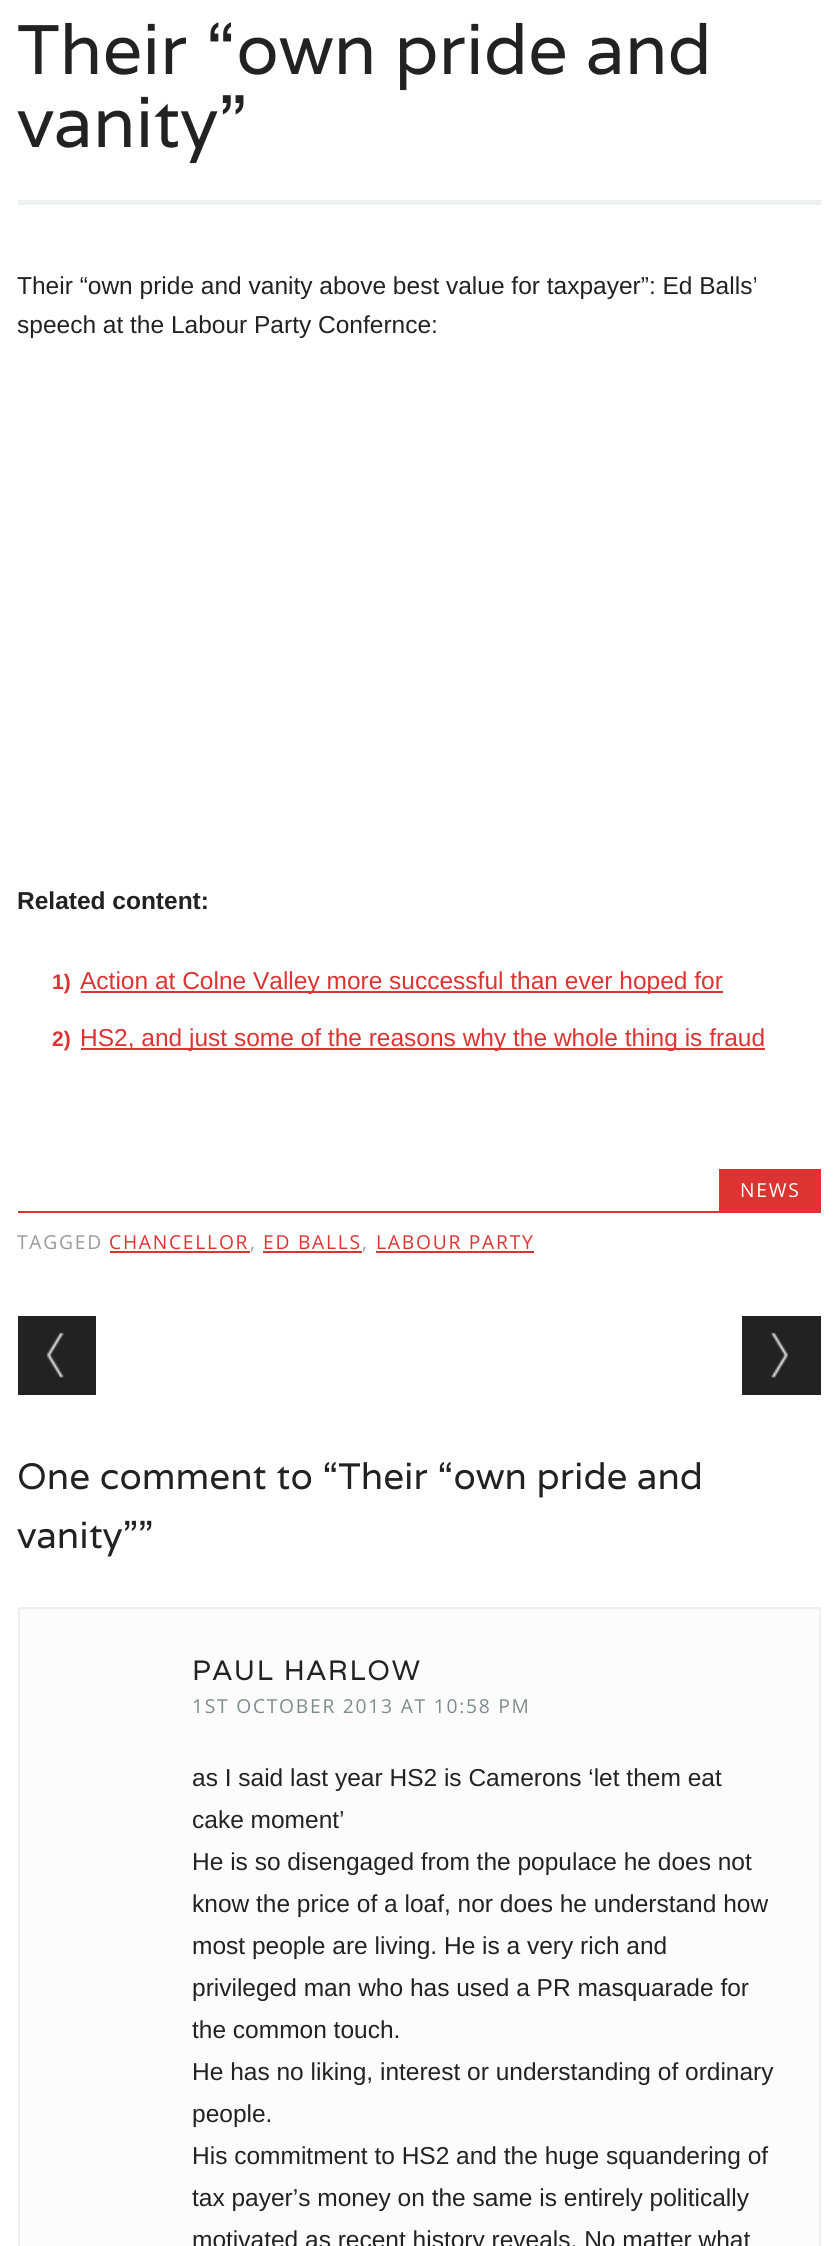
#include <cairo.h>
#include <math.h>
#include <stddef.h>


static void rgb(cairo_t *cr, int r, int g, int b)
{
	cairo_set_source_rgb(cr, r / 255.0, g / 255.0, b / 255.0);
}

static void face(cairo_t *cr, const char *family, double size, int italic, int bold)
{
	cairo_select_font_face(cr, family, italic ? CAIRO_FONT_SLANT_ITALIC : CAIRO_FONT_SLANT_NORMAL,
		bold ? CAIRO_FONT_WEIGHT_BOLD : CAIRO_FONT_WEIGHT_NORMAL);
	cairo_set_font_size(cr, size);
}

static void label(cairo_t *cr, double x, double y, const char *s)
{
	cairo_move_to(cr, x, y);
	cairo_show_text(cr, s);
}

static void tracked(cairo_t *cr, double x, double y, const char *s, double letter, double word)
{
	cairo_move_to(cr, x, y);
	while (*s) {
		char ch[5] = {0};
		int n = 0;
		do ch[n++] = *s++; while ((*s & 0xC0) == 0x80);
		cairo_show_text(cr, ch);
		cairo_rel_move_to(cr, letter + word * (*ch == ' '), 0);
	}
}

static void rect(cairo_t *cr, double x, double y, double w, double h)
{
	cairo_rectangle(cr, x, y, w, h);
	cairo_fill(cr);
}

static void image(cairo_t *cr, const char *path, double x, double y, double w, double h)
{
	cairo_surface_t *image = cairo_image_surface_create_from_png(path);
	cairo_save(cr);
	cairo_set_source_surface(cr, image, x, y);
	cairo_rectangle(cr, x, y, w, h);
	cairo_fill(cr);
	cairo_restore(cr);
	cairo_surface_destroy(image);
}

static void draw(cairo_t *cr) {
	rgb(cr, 255, 255, 255);
	cairo_paint(cr);
	rgb(cr, 236, 240, 241);
	rect(cr, 18, 200, 803, 5);
	face(cr, "Varela", 70, 0, 0);
	rgb(cr, 34, 34, 34);
	label(cr, 17, 74, "Their “own pride and");
	label(cr, 17, 147, "vanity”");
	face(cr, "Liberation Sans", 24.5, 0, 0);
	label(cr, 17, 294, "Their “own pride and vanity above best value for taxpayer”: Ed Balls’");
	label(cr, 17, 333, "speech at the Labour Party Confernce:");
	face(cr, "Liberation Sans", 24.5, 0, 1);
	label(cr, 17, 909, "Related content:");
	face(cr, "Liberation Sans", 21, 0, 1);
	rgb(cr, 221, 51, 51);
	label(cr, 52, 989, "1)");
	rect(cr, 81, 991, 642, 2);
	face(cr, "Liberation Sans", 24.5, 0, 0);
	label(cr, 80, 989, "Action at Colne Valley more successful than ever hoped for");
	face(cr, "Liberation Sans", 21, 0, 1);
	label(cr, 52, 1046, "2)");
	rect(cr, 81, 1048, 684, 2);
	face(cr, "Liberation Sans", 24.5, 0, 0);
	label(cr, 80, 1046, "HS2, and just some of the reasons why the whole thing is fraud");
	rect(cr, 719, 1169, 102, 42);
	face(cr, "Open Sans", 19.25, 0, 0);
	rgb(cr, 255, 255, 255);
	tracked(cr, 740, 1197, "NEWS", 1.75, 0);
	rgb(cr, 221, 51, 51);
	rect(cr, 18, 1211, 803, 2);
	rgb(cr, 153, 153, 153);
	tracked(cr, 17, 1249, "TAGGED", 1.75, 0);
	rgb(cr, 221, 51, 51);
	tracked(cr, 109, 1249, "CHANCELLOR", 1.75, 0);
	rgb(cr, 153, 153, 153);
	tracked(cr, 250, 1249, ",", 1.75, 0);
	rgb(cr, 221, 51, 51);
	rect(cr, 110, 1251, 140, 2);
	tracked(cr, 263, 1249, "ED BALLS", 1.75, 0);
	rgb(cr, 153, 153, 153);
	tracked(cr, 362, 1249, ",", 1.75, 0);
	rgb(cr, 221, 51, 51);
	rect(cr, 263, 1251, 99, 2);
	rect(cr, 376, 1251, 158, 2);
	tracked(cr, 376, 1249, "LABOUR PARTY", 1.75, 0);
	rgb(cr, 34, 34, 34);
	rect(cr, 18, 1316, 78, 79);
	image(cr, "image0.png", 46, 1332, 18, 46);
	rect(cr, 742, 1316, 79, 79);
	image(cr, "image1.png", 771, 1332, 17, 46);
	face(cr, "Varela", 36.75, 0, 0);
	label(cr, 17, 1489, "One comment to “Their “own pride and");
	label(cr, 17, 1548, "vanity””");
	rgb(cr, 252, 252, 252);
	cairo_rectangle(cr, 19, 1608, 801, 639);
	cairo_fill_preserve(cr);
	rgb(cr, 236, 240, 241);
	cairo_stroke(cr);
	face(cr, "Varela", 28, 0, 0);
	rgb(cr, 34, 34, 34);
	tracked(cr, 192, 1680, "PAUL HARLOW", 1.75, 0);
	face(cr, "Open Sans", 19.25, 0, 0);
	rgb(cr, 127, 140, 141);
	tracked(cr, 192, 1713, "1ST OCTOBER 2013 AT 10:58 PM", 1.75, 0);
	face(cr, "Liberation Sans", 24.5, 0, 0);
	rgb(cr, 34, 34, 34);
	label(cr, 192, 1786, "as I said last year HS2 is Camerons ‘let them eat");
	label(cr, 192, 1828, "cake moment’");
	label(cr, 192, 1870, "He is so disengaged from the populace he does not");
	label(cr, 192, 1912, "know the price of a loaf, nor does he understand how");
	label(cr, 192, 1954, "most people are living. He is a very rich and");
	label(cr, 192, 1996, "privileged man who has used a PR masquarade for");
	label(cr, 192, 2038, "the common touch.");
	label(cr, 192, 2080, "He has no liking, interest or understanding of ordinary");
	label(cr, 192, 2122, "people.");
	label(cr, 192, 2164, "His commitment to HS2 and the huge squandering of");
	label(cr, 192, 2206, "tax payer’s money on the same is entirely politically");
	label(cr, 192, 2248, "motivated as recent history reveals. No matter what");
}

int main(void) {
	cairo_surface_t *surface = cairo_image_surface_create(CAIRO_FORMAT_RGB24, 837, 2246);
	cairo_t *cr = cairo_create(surface);
	cairo_font_options_t *options = cairo_font_options_create();
	cairo_font_options_set_hint_metrics(options, CAIRO_HINT_METRICS_OFF);
	cairo_font_options_set_hint_style(options, CAIRO_HINT_STYLE_NONE);
	cairo_set_font_options(cr, options);
	cairo_set_miter_limit(cr, 4);
	draw(cr);
	cairo_surface_write_to_png(surface, "render.png");
	cairo_font_options_destroy(options);
	cairo_destroy(cr);
	cairo_surface_destroy(surface);
	return 0;
}
